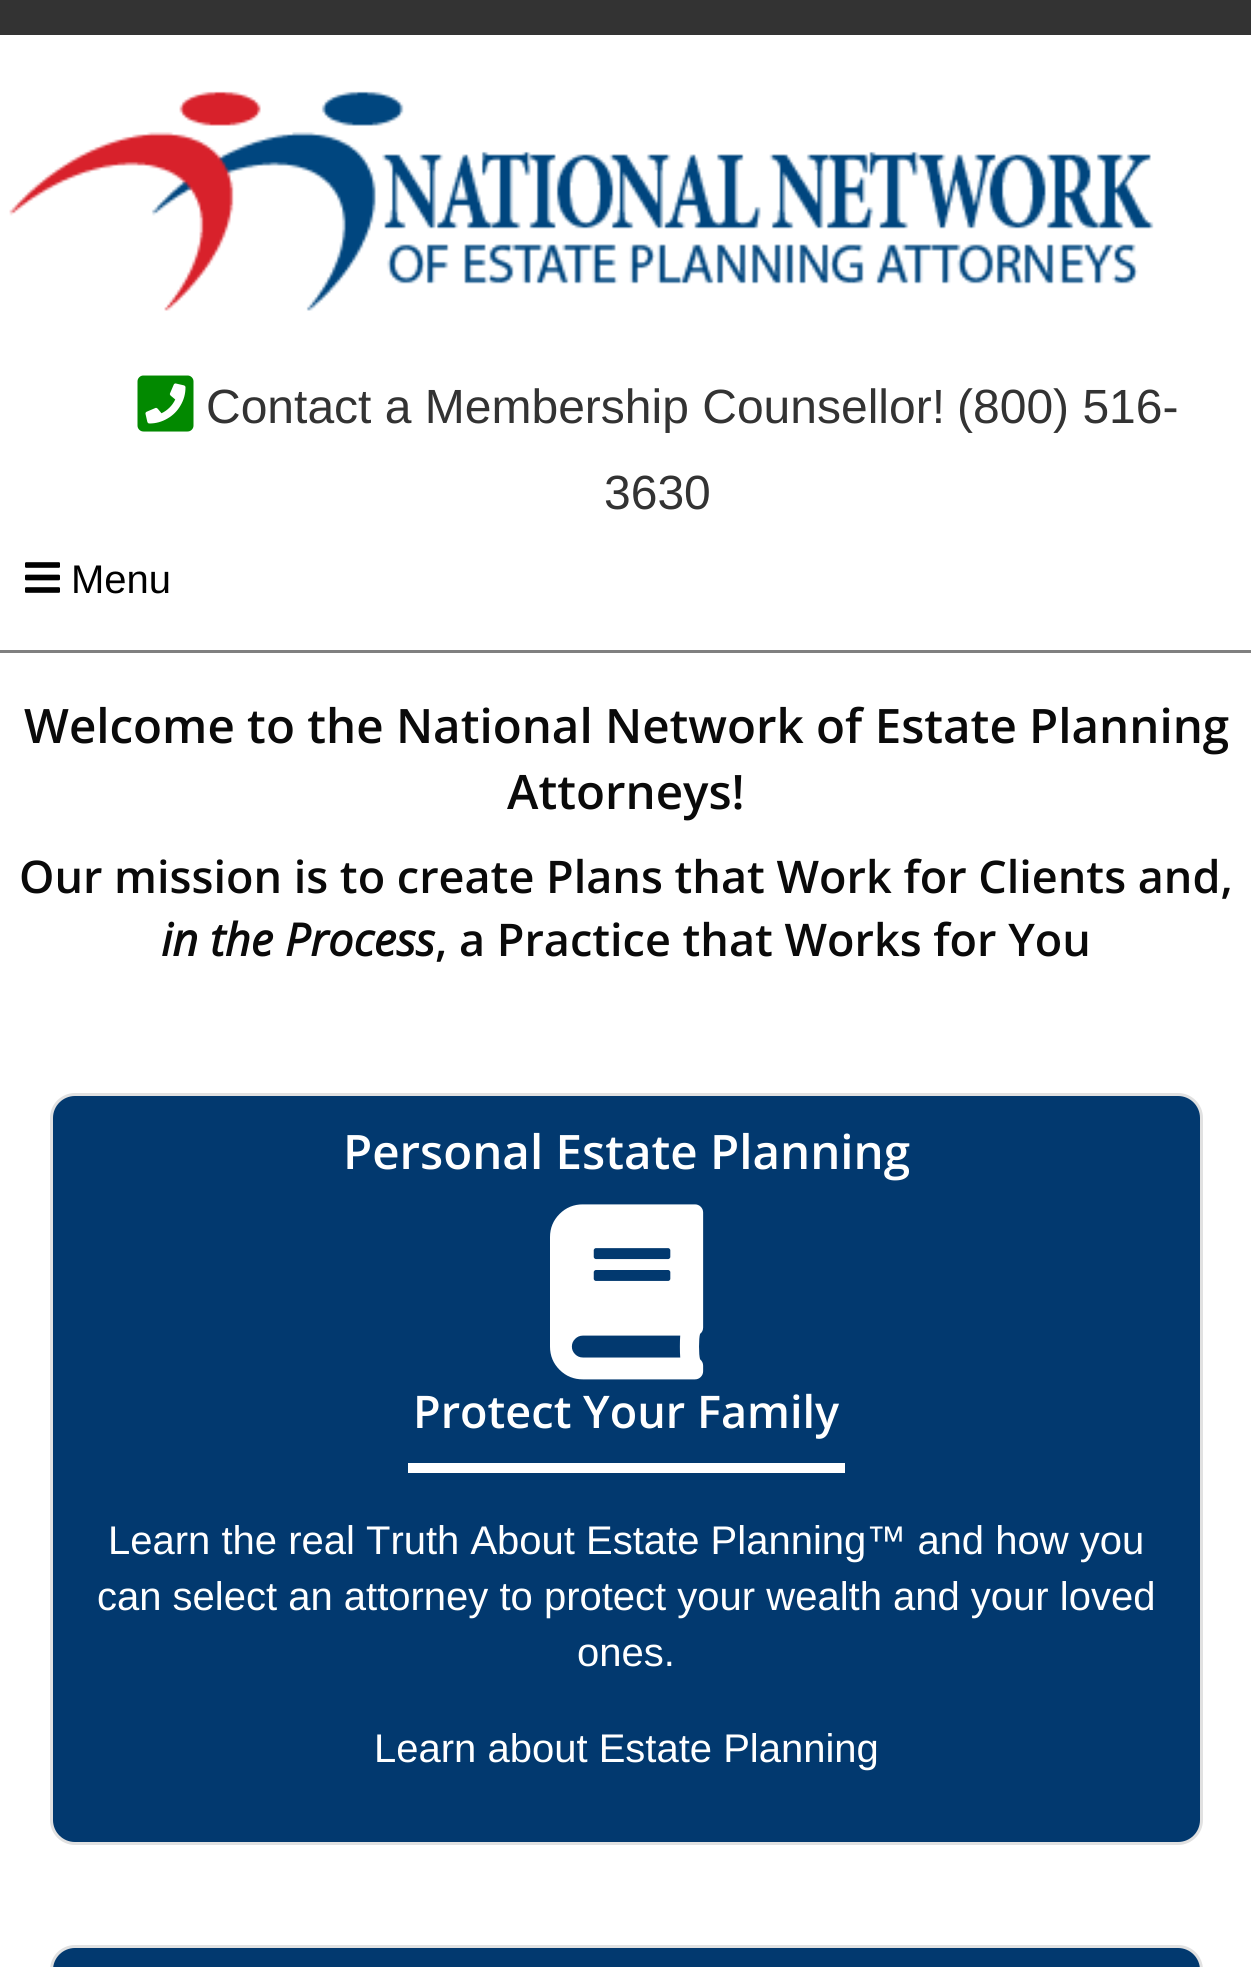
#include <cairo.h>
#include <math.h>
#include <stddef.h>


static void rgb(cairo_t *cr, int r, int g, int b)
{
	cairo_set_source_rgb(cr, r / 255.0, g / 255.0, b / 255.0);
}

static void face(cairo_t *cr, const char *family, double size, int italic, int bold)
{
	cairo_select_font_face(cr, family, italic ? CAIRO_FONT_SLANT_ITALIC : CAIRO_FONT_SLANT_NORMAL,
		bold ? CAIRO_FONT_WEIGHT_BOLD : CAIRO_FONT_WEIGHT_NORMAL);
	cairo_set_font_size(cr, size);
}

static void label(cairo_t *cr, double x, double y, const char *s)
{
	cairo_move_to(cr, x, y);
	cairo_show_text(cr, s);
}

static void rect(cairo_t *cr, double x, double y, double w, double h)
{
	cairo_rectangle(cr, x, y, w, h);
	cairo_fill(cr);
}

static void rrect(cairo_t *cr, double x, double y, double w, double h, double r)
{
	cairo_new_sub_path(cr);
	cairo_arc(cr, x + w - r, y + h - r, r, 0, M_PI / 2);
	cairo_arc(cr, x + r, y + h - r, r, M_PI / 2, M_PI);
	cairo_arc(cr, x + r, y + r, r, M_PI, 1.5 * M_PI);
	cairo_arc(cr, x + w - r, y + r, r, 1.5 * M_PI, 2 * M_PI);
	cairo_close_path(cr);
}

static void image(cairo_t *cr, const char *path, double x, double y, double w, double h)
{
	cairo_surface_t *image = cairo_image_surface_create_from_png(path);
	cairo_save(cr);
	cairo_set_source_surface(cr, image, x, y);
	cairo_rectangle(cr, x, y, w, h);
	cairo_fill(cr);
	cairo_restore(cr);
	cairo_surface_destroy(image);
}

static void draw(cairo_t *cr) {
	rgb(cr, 255, 255, 255);
	cairo_paint(cr);
	rgb(cr, 51, 51, 51);
	rect(cr, 0, 0, 1251, 35);
	rgb(cr, 128, 128, 128);
	rect(cr, 0, 650, 1251, 3);
	image(cr, "image0.png", 9, 91, 1145, 220);
	image(cr, "image1.png", 137, 375, 57, 57);
	face(cr, "Liberation Sans", 48, 0, 0);
	rgb(cr, 51, 51, 51);
	label(cr, 206, 423, "Contact a Membership Counsellor!");
	label(cr, 957, 423, "(800) 516-");
	label(cr, 604, 509, "3630");
	image(cr, "image2.png", 25, 562, 35, 31);
	face(cr, "Liberation Sans", 40, 0, 0);
	rgb(cr, 0, 0, 0);
	label(cr, 71, 593, "Menu");
	face(cr, "Open Sans SemiBold", 47.5, 0, 0);
	rgb(cr, 10, 10, 10);
	label(cr, 24, 743, "Welcome to the National Network of Estate Planning");
	label(cr, 507, 809, "Attorneys!");
	face(cr, "Open Sans SemiBold", 45, 0, 0);
	label(cr, 19, 893, "Our mission is to create Plans that Work for Clients and,");
	face(cr, "Open Sans", 45, 1, 1);
	label(cr, 161, 956, "in the Process");
	face(cr, "Open Sans SemiBold", 45, 0, 0);
	label(cr, 435, 956, ", a Practice that Works for You");
	rgb(cr, 2, 57, 111);
	rrect(cr, 51.5, 1094.5, 1150, 749, 23.5);
	cairo_fill_preserve(cr);
	rgb(cr, 225, 225, 225);
	cairo_set_line_width(cr, 3);
	cairo_stroke(cr);
	face(cr, "Open Sans SemiBold", 47.5, 0, 0);
	rgb(cr, 255, 255, 255);
	label(cr, 343, 1169, "Personal Estate Planning");
	image(cr, "image3.png", 550, 1204, 154, 176);
	face(cr, "Open Sans SemiBold", 45, 0, 0);
	label(cr, 413, 1428, "Protect Your Family");
	rect(cr, 408, 1463, 437, 10);
	face(cr, "Liberation Sans", 40, 0, 0);
	label(cr, 108, 1554, "Learn the real Truth About Estate Planning™ and how you");
	label(cr, 97, 1610, "can select an attorney to protect your wealth and your loved");
	label(cr, 577, 1666, "ones.");
	label(cr, 374, 1762, "Learn about Estate Planning");
	rgb(cr, 2, 57, 111);
	rrect(cr, 51.5, 1946.5, 1150, 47, 23.5);
	cairo_fill_preserve(cr);
	rgb(cr, 225, 225, 225);
	cairo_stroke(cr);
}

int main(void) {
	cairo_surface_t *surface = cairo_image_surface_create(CAIRO_FORMAT_RGB24, 1251, 1967);
	cairo_t *cr = cairo_create(surface);
	cairo_font_options_t *options = cairo_font_options_create();
	cairo_font_options_set_hint_metrics(options, CAIRO_HINT_METRICS_OFF);
	cairo_font_options_set_hint_style(options, CAIRO_HINT_STYLE_NONE);
	cairo_set_font_options(cr, options);
	cairo_set_miter_limit(cr, 4);
	draw(cr);
	cairo_surface_write_to_png(surface, "render.png");
	cairo_font_options_destroy(options);
	cairo_destroy(cr);
	cairo_surface_destroy(surface);
	return 0;
}
